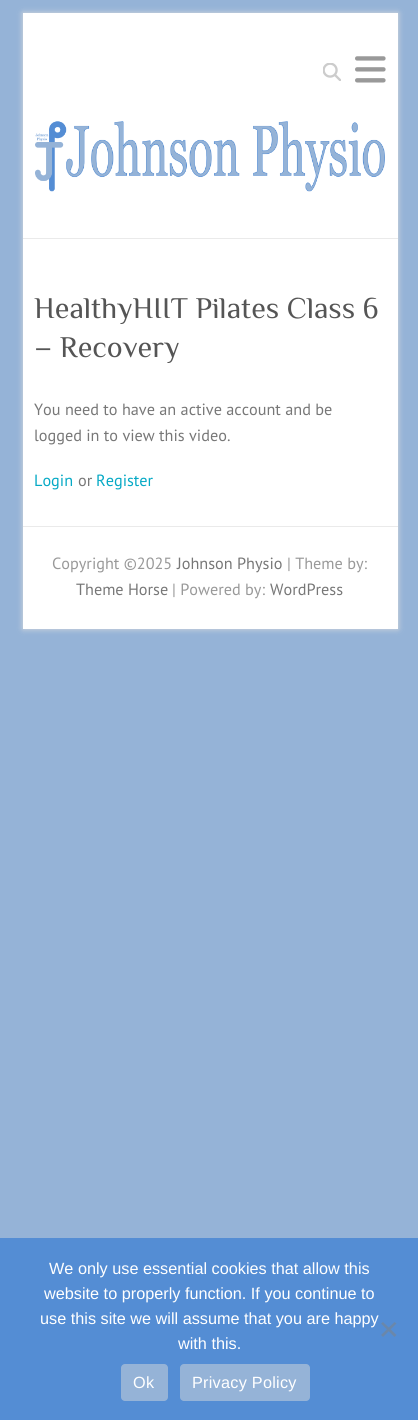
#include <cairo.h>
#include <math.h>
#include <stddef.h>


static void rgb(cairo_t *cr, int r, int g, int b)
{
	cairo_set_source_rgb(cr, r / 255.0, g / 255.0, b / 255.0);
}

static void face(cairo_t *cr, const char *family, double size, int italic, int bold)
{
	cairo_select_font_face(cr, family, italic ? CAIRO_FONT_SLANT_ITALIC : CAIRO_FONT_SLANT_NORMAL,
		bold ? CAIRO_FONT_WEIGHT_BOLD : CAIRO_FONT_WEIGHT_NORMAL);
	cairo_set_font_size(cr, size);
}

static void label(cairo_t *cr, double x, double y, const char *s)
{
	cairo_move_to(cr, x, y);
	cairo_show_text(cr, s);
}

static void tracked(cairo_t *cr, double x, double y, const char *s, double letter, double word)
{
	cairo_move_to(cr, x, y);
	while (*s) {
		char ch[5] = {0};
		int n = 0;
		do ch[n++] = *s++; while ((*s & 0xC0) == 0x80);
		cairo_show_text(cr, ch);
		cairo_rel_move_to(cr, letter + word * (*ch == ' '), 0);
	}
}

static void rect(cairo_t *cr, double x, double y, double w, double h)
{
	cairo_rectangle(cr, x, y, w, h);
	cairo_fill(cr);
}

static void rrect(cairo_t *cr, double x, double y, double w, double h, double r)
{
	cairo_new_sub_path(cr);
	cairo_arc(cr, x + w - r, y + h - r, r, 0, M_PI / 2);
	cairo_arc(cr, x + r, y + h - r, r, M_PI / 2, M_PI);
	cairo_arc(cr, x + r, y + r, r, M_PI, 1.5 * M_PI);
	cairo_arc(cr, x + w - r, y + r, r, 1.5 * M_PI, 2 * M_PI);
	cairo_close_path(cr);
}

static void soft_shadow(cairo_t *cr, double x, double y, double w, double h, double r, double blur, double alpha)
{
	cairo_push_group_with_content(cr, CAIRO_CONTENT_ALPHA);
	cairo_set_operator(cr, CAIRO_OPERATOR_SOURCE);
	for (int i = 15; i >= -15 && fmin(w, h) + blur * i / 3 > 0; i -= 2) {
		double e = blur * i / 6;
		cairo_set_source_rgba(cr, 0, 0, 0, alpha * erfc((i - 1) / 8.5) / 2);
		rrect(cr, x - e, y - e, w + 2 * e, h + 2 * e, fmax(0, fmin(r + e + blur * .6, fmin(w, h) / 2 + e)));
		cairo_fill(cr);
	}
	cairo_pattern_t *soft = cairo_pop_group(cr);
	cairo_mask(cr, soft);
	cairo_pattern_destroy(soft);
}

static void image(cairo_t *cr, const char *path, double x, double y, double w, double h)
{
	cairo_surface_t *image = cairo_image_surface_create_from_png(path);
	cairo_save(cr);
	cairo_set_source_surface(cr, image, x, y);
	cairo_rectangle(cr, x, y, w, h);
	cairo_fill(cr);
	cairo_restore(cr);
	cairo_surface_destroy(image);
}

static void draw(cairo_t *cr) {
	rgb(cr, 149, 179, 215);
	cairo_paint(cr);
	rgb(cr, 221, 221, 221);
	soft_shadow(cr, 23, 13, 375, 616, 0, 3, 1);
	rgb(cr, 255, 255, 255);
	rect(cr, 23, 13, 375, 616);
	image(cr, "image0.png", 323, 63, 18, 18);
	image(cr, "image1.png", 355, 56, 31, 27);
	image(cr, "image2.png", 35, 121, 350, 71);
	rgb(cr, 234, 234, 234);
	rect(cr, 23, 238, 375, 1);
	face(cr, "Philosopher", 30, 0, 0);
	rgb(cr, 85, 85, 85);
	label(cr, 34, 318, "HealthyHIIT Pilates Class 6");
	label(cr, 34, 357, "– Recovery");
	face(cr, "PT Sans", 16.25, 0, 0);
	rgb(cr, 119, 119, 119);
	label(cr, 34, 415, "You need to have an active account and be");
	label(cr, 34, 441, "logged in to view this video.");
	rgb(cr, 5, 169, 197);
	label(cr, 34, 486, "Login");
	rgb(cr, 119, 119, 119);
	label(cr, 78, 486, "or");
	rgb(cr, 5, 169, 197);
	label(cr, 96, 486, "Register");
	rgb(cr, 234, 234, 234);
	rect(cr, 23, 526, 375, 1);
	rgb(cr, 153, 153, 153);
	label(cr, 52, 569, "Copyright ©2025");
	rgb(cr, 119, 119, 119);
	label(cr, 177, 569, "Johnson Physio");
	rgb(cr, 153, 153, 153);
	label(cr, 287, 569, "| Theme by:");
	rgb(cr, 119, 119, 119);
	label(cr, 76, 595, "Theme Horse");
	rgb(cr, 153, 153, 153);
	label(cr, 172, 595, "| Powered by:");
	rgb(cr, 119, 119, 119);
	label(cr, 270, 595, "WordPress");
	rgb(cr, 84, 141, 212);
	rect(cr, 0, 1238, 418, 182);
	face(cr, "Liberation Sans", 16.25, 0, 0);
	rgb(cr, 255, 255, 255);
	label(cr, 49, 1274, "We only use essential cookies that allow this");
	label(cr, 44, 1299, "website to properly function. If you continue to");
	label(cr, 40, 1324, "use this site we will assume that you are happy");
	label(cr, 178, 1349, "with this.");
	rgb(cr, 106, 135, 170);
	cairo_new_path(cr);
	cairo_move_to(cr, 394.5, 1322);
	cairo_line_to(cr, 396.5, 1323.5);
	cairo_line_to(cr, 383, 1337);
	cairo_line_to(cr, 381, 1335);
	cairo_close_path(cr);
	cairo_fill(cr);
	cairo_new_path(cr);
	cairo_move_to(cr, 381, 1323.5);
	cairo_line_to(cr, 383, 1322);
	cairo_line_to(cr, 396.5, 1335);
	cairo_line_to(cr, 394.5, 1337);
	cairo_close_path(cr);
	cairo_fill(cr);
	rgb(cr, 149, 179, 215);
	rrect(cr, 121, 1364, 47, 37, 4);
	cairo_fill(cr);
	rgb(cr, 255, 255, 255);
	tracked(cr, 133, 1388, "Ok", 0.25, 0);
	rgb(cr, 149, 179, 215);
	rrect(cr, 180, 1364, 130, 37, 4);
	cairo_fill(cr);
	rgb(cr, 255, 255, 255);
	tracked(cr, 192, 1388, "Privacy Policy", 0.25, 0);
}

int main(void) {
	cairo_surface_t *surface = cairo_image_surface_create(CAIRO_FORMAT_RGB24, 418, 1420);
	cairo_t *cr = cairo_create(surface);
	cairo_font_options_t *options = cairo_font_options_create();
	cairo_font_options_set_hint_metrics(options, CAIRO_HINT_METRICS_OFF);
	cairo_font_options_set_hint_style(options, CAIRO_HINT_STYLE_NONE);
	cairo_set_font_options(cr, options);
	cairo_set_miter_limit(cr, 4);
	draw(cr);
	cairo_surface_write_to_png(surface, "render.png");
	cairo_font_options_destroy(options);
	cairo_destroy(cr);
	cairo_surface_destroy(surface);
	return 0;
}
